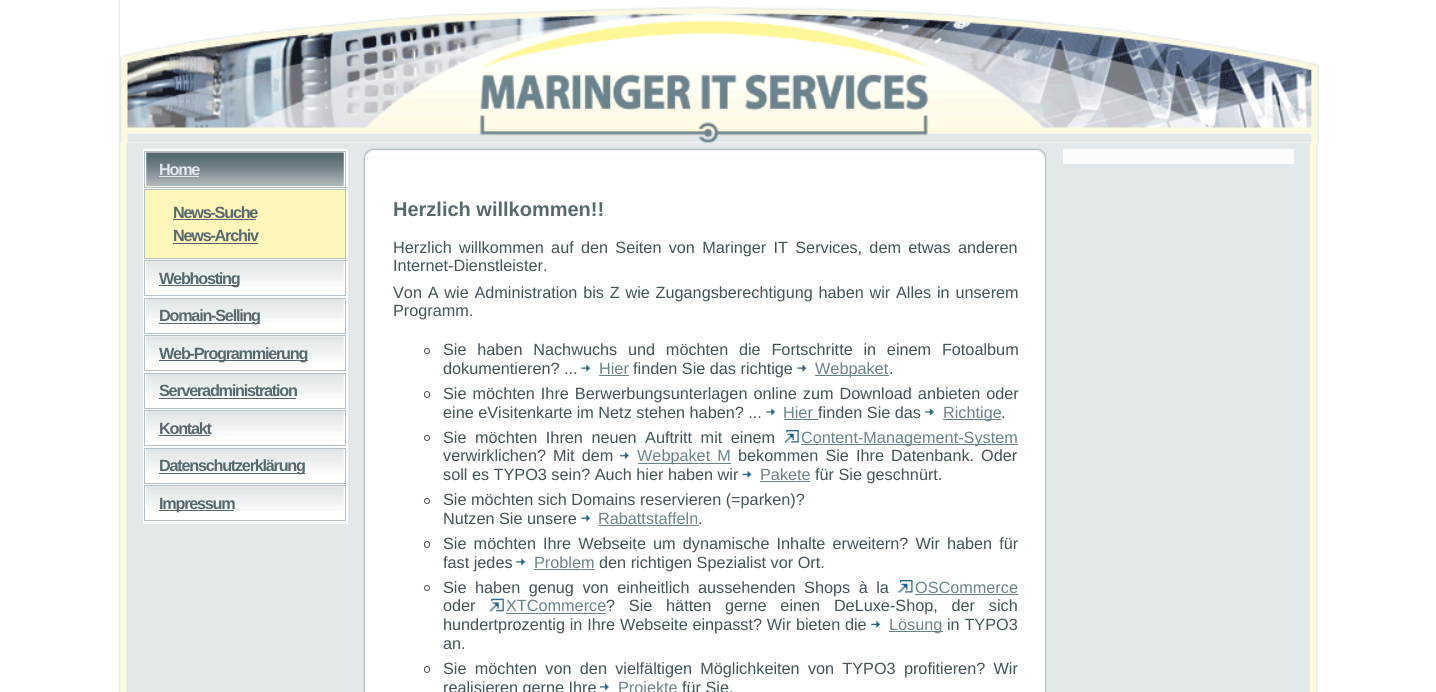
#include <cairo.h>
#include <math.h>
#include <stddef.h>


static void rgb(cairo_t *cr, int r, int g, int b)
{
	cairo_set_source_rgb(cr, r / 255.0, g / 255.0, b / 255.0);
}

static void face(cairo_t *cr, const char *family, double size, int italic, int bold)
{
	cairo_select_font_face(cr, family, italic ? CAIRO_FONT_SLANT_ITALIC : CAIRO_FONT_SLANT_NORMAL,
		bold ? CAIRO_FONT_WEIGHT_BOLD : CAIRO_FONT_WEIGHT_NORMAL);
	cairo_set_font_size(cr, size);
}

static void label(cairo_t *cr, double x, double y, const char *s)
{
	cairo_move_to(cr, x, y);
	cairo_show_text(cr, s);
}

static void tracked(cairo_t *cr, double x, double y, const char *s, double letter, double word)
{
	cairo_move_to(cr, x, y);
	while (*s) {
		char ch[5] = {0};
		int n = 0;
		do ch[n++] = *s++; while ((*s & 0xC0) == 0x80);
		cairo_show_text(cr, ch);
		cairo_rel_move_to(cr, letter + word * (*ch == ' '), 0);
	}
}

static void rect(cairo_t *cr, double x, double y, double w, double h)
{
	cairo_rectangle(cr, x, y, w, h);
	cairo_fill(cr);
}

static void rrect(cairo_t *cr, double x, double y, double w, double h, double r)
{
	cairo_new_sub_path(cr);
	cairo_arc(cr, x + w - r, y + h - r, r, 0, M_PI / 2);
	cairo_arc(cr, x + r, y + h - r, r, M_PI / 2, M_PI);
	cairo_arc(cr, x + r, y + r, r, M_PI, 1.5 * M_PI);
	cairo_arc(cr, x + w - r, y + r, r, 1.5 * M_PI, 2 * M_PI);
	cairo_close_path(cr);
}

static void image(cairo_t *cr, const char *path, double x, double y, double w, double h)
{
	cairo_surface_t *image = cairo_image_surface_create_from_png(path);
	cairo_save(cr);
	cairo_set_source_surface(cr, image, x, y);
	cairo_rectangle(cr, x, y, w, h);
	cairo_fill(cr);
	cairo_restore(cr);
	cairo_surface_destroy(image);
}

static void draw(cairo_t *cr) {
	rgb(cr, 255, 255, 255);
	cairo_paint(cr);
	image(cr, "image0.png", 118, 0, 1200, 692);
	rgb(cr, 255, 255, 255);
	rect(cr, 120, 0, 1198, 143);
	image(cr, "image1.png", 120, 6, 1199, 137);
	rgb(cr, 251, 252, 252);
	rect(cr, 1063, 149, 231, 15);
	rect(cr, 143, 149, 205, 375);
	rgb(cr, 255, 255, 254);
	rect(cr, 145, 152, 200, 35);
	image(cr, "image2.png", 146, 152, 198, 35);
	cairo_rectangle(cr, 144.5, 151.5, 201, 36);
	rgb(cr, 180, 193, 200);
	cairo_set_line_width(cr, 1);
	cairo_stroke(cr);
	face(cr, "Liberation Sans", 16.25, 0, 1);
	rgb(cr, 227, 232, 235);
	tracked(cr, 159, 175, "Home", -1.25, 0);
	rect(cr, 159, 176, 40, 1);
	rgb(cr, 255, 247, 185);
	cairo_rectangle(cr, 144.5, 189.5, 201, 69);
	cairo_fill_preserve(cr);
	rgb(cr, 180, 193, 200);
	cairo_stroke(cr);
	rgb(cr, 86, 105, 111);
	tracked(cr, 173, 218, "News-Suche", -1.25, 0);
	rect(cr, 173, 219, 83, 1);
	tracked(cr, 173, 241, "News-Archiv", -1.25, 0);
	rect(cr, 173, 243, 85, 1);
	rgb(cr, 255, 255, 254);
	rect(cr, 145, 261, 200, 34);
	image(cr, "image3.png", 146, 261, 198, 25);
	cairo_rectangle(cr, 144.5, 260.5, 201, 35);
	rgb(cr, 180, 193, 200);
	cairo_stroke(cr);
	rgb(cr, 86, 105, 111);
	rect(cr, 159, 285, 80, 1);
	tracked(cr, 159, 284, "Webhosting", -1.25, 0);
	rgb(cr, 255, 255, 254);
	rect(cr, 145, 299, 200, 34);
	image(cr, "image4.png", 146, 299, 198, 24);
	cairo_rectangle(cr, 144.5, 298.5, 201, 35);
	rgb(cr, 180, 193, 200);
	cairo_stroke(cr);
	rgb(cr, 86, 105, 111);
	rect(cr, 159, 323, 101, 1);
	tracked(cr, 159, 321, "Domain-Selling", -1.25, 0);
	rgb(cr, 255, 255, 254);
	rect(cr, 145, 336, 200, 34);
	image(cr, "image3.png", 146, 336, 198, 25);
	cairo_rectangle(cr, 144.5, 335.5, 201, 35);
	rgb(cr, 180, 193, 200);
	cairo_stroke(cr);
	rgb(cr, 86, 105, 111);
	rect(cr, 159, 360, 149, 1);
	tracked(cr, 159, 359, "Web-Programmierung", -1.25, 0);
	rgb(cr, 255, 255, 254);
	rect(cr, 145, 374, 200, 34);
	image(cr, "image4.png", 146, 374, 198, 24);
	cairo_rectangle(cr, 144.5, 373.5, 201, 35);
	rgb(cr, 180, 193, 200);
	cairo_stroke(cr);
	rgb(cr, 86, 105, 111);
	tracked(cr, 159, 396, "Serveradministration", -1.25, 0);
	rect(cr, 159, 398, 137, 1);
	rgb(cr, 255, 255, 254);
	rect(cr, 145, 411, 200, 34);
	image(cr, "image3.png", 146, 411, 198, 25);
	cairo_rectangle(cr, 144.5, 410.5, 201, 35);
	rgb(cr, 180, 193, 200);
	cairo_stroke(cr);
	rgb(cr, 86, 105, 111);
	tracked(cr, 159, 434, "Kontakt", -1.25, 0);
	rect(cr, 159, 435, 51, 1);
	rgb(cr, 255, 255, 254);
	rect(cr, 145, 449, 200, 34);
	image(cr, "image4.png", 146, 449, 198, 24);
	cairo_rectangle(cr, 144.5, 448.5, 201, 35);
	rgb(cr, 180, 193, 200);
	cairo_stroke(cr);
	rgb(cr, 86, 105, 111);
	rect(cr, 159, 473, 146, 1);
	tracked(cr, 159, 471, "Datenschutzerklärung", -1.25, 0);
	rgb(cr, 255, 255, 254);
	rect(cr, 145, 486, 200, 34);
	image(cr, "image3.png", 146, 486, 198, 25);
	cairo_rectangle(cr, 144.5, 485.5, 201, 35);
	rgb(cr, 180, 193, 200);
	cairo_stroke(cr);
	rgb(cr, 86, 105, 111);
	rect(cr, 159, 510, 75, 1);
	tracked(cr, 159, 509, "Impressum", -1.25, 0);
	image(cr, "image5.png", 363, 148, 684, 10);
	image(cr, "image6.png", 363, 157, 684, 535);
	face(cr, "Liberation Sans", 20, 0, 1);
	label(cr, 393, 216, "Herzlich willkommen!!");
	face(cr, "Liberation Sans", 16.25, 0, 0);
	rgb(cr, 65, 84, 90);
	tracked(cr, 393, 253, "Herzlich willkommen auf den Seiten von Maringer IT Services, dem etwas anderen", 0, 2.75);
	label(cr, 393, 271, "Internet-Dienstleister.");
	tracked(cr, 393, 298, "Von A wie Administration bis Z wie Zugangsberechtigung haben wir Alles in unserem", 0, 1.25);
	label(cr, 393, 316, "Programm.");
	cairo_new_path(cr);
	cairo_arc(cr, 427, 351, 2.5, 0, 2 * M_PI);
	cairo_stroke(cr);
	tracked(cr, 443, 355, "Sie haben Nachwuchs und möchten die Fortschritte in einem Fotoalbum", 0, 6.25);
	label(cr, 443, 374, "dokumentieren? ...");
	image(cr, "image7.png", 581, 364, 10, 8);
	rgb(cr, 107, 131, 141);
	label(cr, 599, 374, "Hier");
	rect(cr, 599, 375, 30, 1);
	rgb(cr, 65, 84, 90);
	label(cr, 633, 374, "finden Sie das richtige");
	image(cr, "image8.png", 797, 364, 10, 8);
	rgb(cr, 107, 131, 141);
	rect(cr, 815, 375, 74, 1);
	label(cr, 815, 374, "Webpaket");
	rgb(cr, 65, 84, 90);
	label(cr, 889, 374, ".");
	rrect(cr, 424.5, 391.5, 5, 6, 2.5);
	cairo_stroke(cr);
	tracked(cr, 443, 399, "Sie möchten Ihre Berwerbungsunterlagen online zum Download anbieten oder", 0, 1.5);
	label(cr, 443, 418, "eine eVisitenkarte im Netz stehen haben? ...");
	image(cr, "image9.png", 766, 408, 10, 8);
	rgb(cr, 107, 131, 141);
	label(cr, 783, 418, "Hier");
	rect(cr, 784, 419, 34, 1);
	rgb(cr, 65, 84, 90);
	label(cr, 818, 418, "finden Sie das");
	image(cr, "image10.png", 925, 408, 9, 8);
	rgb(cr, 107, 131, 141);
	rect(cr, 943, 419, 58, 1);
	label(cr, 943, 418, "Richtige");
	rgb(cr, 65, 84, 90);
	label(cr, 1001, 418, ".");
	cairo_new_path(cr);
	cairo_arc(cr, 427, 438, 2.5, 0, 2 * M_PI);
	cairo_stroke(cr);
	tracked(cr, 443, 443, "Sie möchten Ihren neuen Auftritt mit einem", 0, 4);
	image(cr, "image11.png", 783, 430, 16, 13);
	rgb(cr, 107, 131, 141);
	rect(cr, 801, 444, 217, 1);
	label(cr, 801, 443, "Content-Management-System");
	rgb(cr, 65, 84, 90);
	tracked(cr, 443, 461, "verwirklichen? Mit dem", 0, 2.5);
	image(cr, "image12.png", 620, 452, 9, 7);
	rgb(cr, 107, 131, 141);
	rect(cr, 638, 463, 93, 1);
	tracked(cr, 637, 461, "Webpaket M", 0, 2.5);
	rgb(cr, 65, 84, 90);
	tracked(cr, 738, 461, "bekommen Sie Ihre Datenbank. Oder", 0, 2.5);
	label(cr, 443, 480, "soll es TYPO3 sein? Auch hier haben wir");
	image(cr, "image13.png", 742, 471, 10, 7);
	rgb(cr, 107, 131, 141);
	label(cr, 760, 480, "Pakete");
	rect(cr, 760, 481, 50, 1);
	rgb(cr, 65, 84, 90);
	label(cr, 815, 480, "für Sie geschnürt.");
	cairo_new_path(cr);
	cairo_arc(cr, 427, 501, 2.5, 0, 2 * M_PI);
	cairo_stroke(cr);
	label(cr, 443, 505, "Sie möchten sich Domains reservieren (=parken)?");
	label(cr, 443, 524, "Nutzen Sie unsere");
	image(cr, "image7.png", 581, 514, 10, 8);
	rgb(cr, 107, 131, 141);
	label(cr, 598, 524, "Rabattstaffeln");
	rect(cr, 599, 525, 100, 1);
	rgb(cr, 65, 84, 90);
	label(cr, 698, 524, ".");
	rrect(cr, 424.5, 541.5, 5, 6, 2.5);
	cairo_stroke(cr);
	tracked(cr, 443, 549, "Sie möchten Ihre Webseite um dynamische Inhalte erweitern? Wir haben für", 0, 2.6);
	label(cr, 443, 568, "fast jedes");
	image(cr, "image9.png", 516, 558, 10, 8);
	rgb(cr, 107, 131, 141);
	label(cr, 534, 568, "Problem");
	rect(cr, 534, 569, 61, 1);
	rgb(cr, 65, 84, 90);
	label(cr, 599, 568, "den richtigen Spezialist vor Ort.");
	cairo_new_path(cr);
	cairo_arc(cr, 427, 588, 2.5, 0, 2 * M_PI);
	cairo_stroke(cr);
	tracked(cr, 443, 593, "Sie haben genug von einheitlich aussehenden Shops à la", 0, 4);
	image(cr, "image14.png", 897, 580, 16, 13);
	rgb(cr, 107, 131, 141);
	label(cr, 915, 593, "OSCommerce");
	rect(cr, 915, 594, 103, 1);
	rgb(cr, 65, 84, 90);
	label(cr, 443, 611, "oder");
	image(cr, "image15.png", 488, 598, 16, 14);
	rgb(cr, 107, 131, 141);
	label(cr, 506, 611, "XTCommerce");
	rect(cr, 506, 613, 100, 1);
	rgb(cr, 65, 84, 90);
	tracked(cr, 606, 611, "? Sie hätten gerne einen DeLuxe-Shop, der sich", 0, 9.25);
	tracked(cr, 443, 630, "hundertprozentig in Ihre Webseite einpasst? Wir bieten die", 0, 0.25);
	image(cr, "image16.png", 871, 621, 10, 7);
	rgb(cr, 107, 131, 141);
	rect(cr, 889, 631, 54, 1);
	label(cr, 889, 630, "Lösung");
	rgb(cr, 65, 84, 90);
	tracked(cr, 947, 630, "in TYPO3", 0, 0.25);
	label(cr, 443, 649, "an.");
	rrect(cr, 424.5, 666.5, 5, 6, 2.5);
	cairo_stroke(cr);
	tracked(cr, 443, 674, "Sie möchten von den vielfältigen Möglichkeiten von TYPO3 profitieren? Wir", 0, 3.75);
	label(cr, 443, 693, "realisieren gerne Ihre");
	image(cr, "image17.png", 600, 683, 9, 8);
	rgb(cr, 107, 131, 141);
	label(cr, 618, 693, "Projekte");
	rgb(cr, 65, 84, 90);
	label(cr, 682, 693, "für Sie.");
}

int main(void) {
	cairo_surface_t *surface = cairo_image_surface_create(CAIRO_FORMAT_RGB24, 1436, 692);
	cairo_t *cr = cairo_create(surface);
	cairo_font_options_t *options = cairo_font_options_create();
	cairo_font_options_set_hint_metrics(options, CAIRO_HINT_METRICS_OFF);
	cairo_font_options_set_hint_style(options, CAIRO_HINT_STYLE_NONE);
	cairo_set_font_options(cr, options);
	cairo_set_miter_limit(cr, 4);
	draw(cr);
	cairo_surface_write_to_png(surface, "render.png");
	cairo_font_options_destroy(options);
	cairo_destroy(cr);
	cairo_surface_destroy(surface);
	return 0;
}
